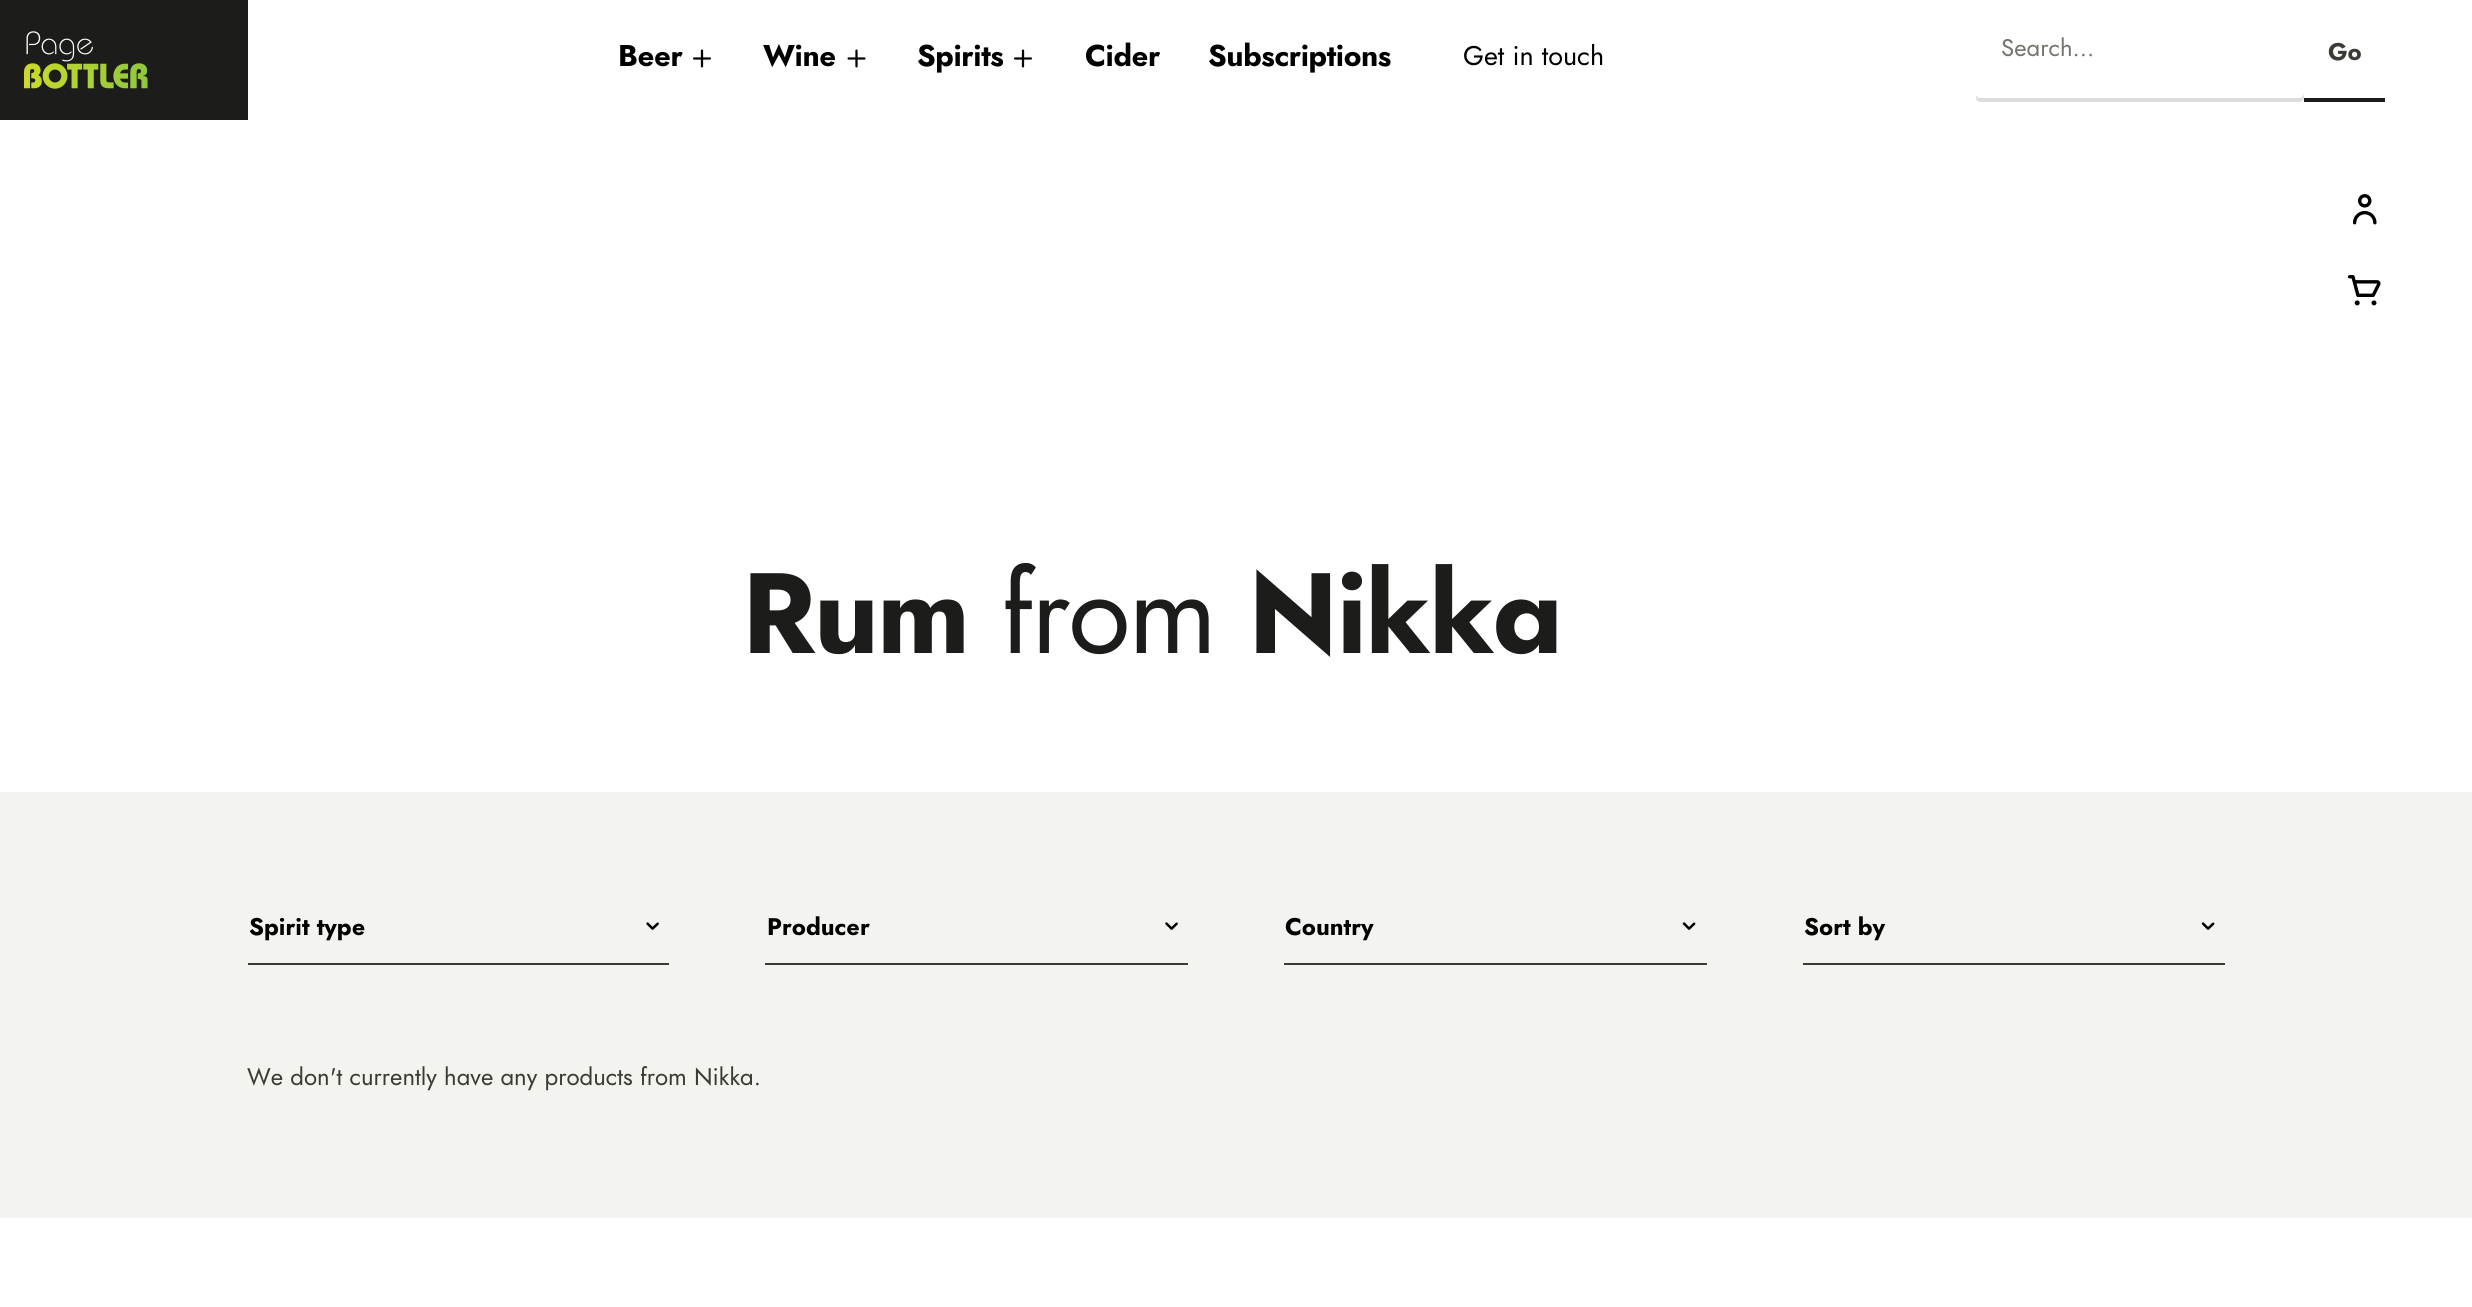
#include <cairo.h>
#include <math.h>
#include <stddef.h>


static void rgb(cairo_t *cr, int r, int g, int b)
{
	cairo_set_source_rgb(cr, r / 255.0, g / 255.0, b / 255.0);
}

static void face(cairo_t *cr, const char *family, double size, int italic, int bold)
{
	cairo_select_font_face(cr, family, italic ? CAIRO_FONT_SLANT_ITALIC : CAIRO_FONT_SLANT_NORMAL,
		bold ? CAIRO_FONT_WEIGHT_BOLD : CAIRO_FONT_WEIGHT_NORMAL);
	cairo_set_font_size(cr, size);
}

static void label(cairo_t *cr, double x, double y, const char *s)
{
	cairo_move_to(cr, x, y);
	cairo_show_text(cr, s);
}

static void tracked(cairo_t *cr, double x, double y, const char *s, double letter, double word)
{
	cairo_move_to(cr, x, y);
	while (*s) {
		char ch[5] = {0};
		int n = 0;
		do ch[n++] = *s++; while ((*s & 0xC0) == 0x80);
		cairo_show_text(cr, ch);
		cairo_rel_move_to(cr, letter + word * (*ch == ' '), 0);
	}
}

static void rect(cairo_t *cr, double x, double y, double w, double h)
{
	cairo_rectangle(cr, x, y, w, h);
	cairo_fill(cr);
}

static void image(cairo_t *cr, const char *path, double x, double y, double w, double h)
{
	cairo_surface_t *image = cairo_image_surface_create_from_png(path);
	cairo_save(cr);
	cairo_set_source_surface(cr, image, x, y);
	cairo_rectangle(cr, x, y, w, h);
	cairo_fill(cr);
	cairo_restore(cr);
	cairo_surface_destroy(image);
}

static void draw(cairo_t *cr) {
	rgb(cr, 255, 255, 255);
	cairo_paint(cr);
	rgb(cr, 28, 29, 26);
	rect(cr, 0, 0, 248, 120);
	image(cr, "image0.png", 24, 31, 124, 58);
	face(cr, "Jost", 30, 0, 1);
	rgb(cr, 0, 0, 0);
	tracked(cr, 618, 66, "Beer", -0.4, 0);
	image(cr, "image1.png", 693, 49, 18, 19);
	tracked(cr, 763, 66, "Wine", -0.4, 0);
	image(cr, "image2.png", 847, 49, 19, 19);
	tracked(cr, 917, 66, "Spirits", -0.4, 0);
	image(cr, "image1.png", 1014, 49, 18, 19);
	tracked(cr, 1085, 66, "Cider", -0.4, 0);
	tracked(cr, 1208, 66, "Subscriptions", -0.4, 0);
	face(cr, "Jost", 27, 0, 0);
	label(cr, 1463, 65, "Get in touch");
	rgb(cr, 221, 221, 221);
	cairo_new_path(cr);
	cairo_move_to(cr, 1976, 95);
	cairo_line_to(cr, 1976, 97);
	cairo_curve_to(cr, 1976, 100, 1978, 102, 1981, 102);
	cairo_line_to(cr, 2299, 102);
	cairo_curve_to(cr, 2302, 102, 2304, 100, 2304, 97);
	cairo_line_to(cr, 2304, 93);
	cairo_curve_to(cr, 2304, 95, 2302, 98, 2300, 98);
	cairo_line_to(cr, 1980, 98);
	cairo_curve_to(cr, 1978, 98, 1977, 97, 1976, 95);
	cairo_close_path(cr);
	cairo_fill(cr);
	face(cr, "Jost", 24, 0, 0);
	rgb(cr, 115, 116, 108);
	label(cr, 2001, 56, "Search...");
	rgb(cr, 28, 29, 26);
	rect(cr, 2304, 98, 81, 4);
	face(cr, "Jost", 24, 0, 1);
	rgb(cr, 58, 59, 53);
	label(cr, 2328, 60, "Go");
	image(cr, "image3.png", 2352, 194, 25, 31);
	image(cr, "image4.png", 2347, 275, 34, 31);
	face(cr, "Jost", 114, 0, 1);
	rgb(cr, 28, 29, 26);
	tracked(cr, 742, 653, "Rum", -2.25, 0);
	face(cr, "Jost", 114, 0, 0);
	tracked(cr, 1001, 653, "from", -2.25, 0);
	face(cr, "Jost", 114, 0, 1);
	tracked(cr, 1248, 653, "Nikka", -2.25, 0);
	rgb(cr, 243, 244, 239);
	rect(cr, 0, 792, 2472, 426);
	rgb(cr, 58, 59, 53);
	rect(cr, 248, 963, 421, 2);
	face(cr, "Jost", 24, 0, 1);
	rgb(cr, 0, 0, 0);
	label(cr, 249, 935, "Spirit type");
	image(cr, "image5.png", 646, 922, 13, 8);
	rgb(cr, 58, 59, 53);
	rect(cr, 765, 963, 423, 2);
	rgb(cr, 0, 0, 0);
	label(cr, 767, 935, "Producer");
	image(cr, "image5.png", 1165, 922, 13, 8);
	rgb(cr, 58, 59, 53);
	rect(cr, 1284, 963, 423, 2);
	rgb(cr, 0, 0, 0);
	label(cr, 1285, 935, "Country");
	image(cr, "image6.png", 1682, 922, 14, 8);
	rgb(cr, 58, 59, 53);
	rect(cr, 1803, 963, 422, 2);
	rgb(cr, 0, 0, 0);
	label(cr, 1804, 935, "Sort by");
	image(cr, "image6.png", 2201, 922, 14, 8);
	face(cr, "Jost", 24, 0, 0);
	rgb(cr, 58, 59, 53);
	label(cr, 247, 1085, "We don't currently have any products from Nikka.");
}

int main(void) {
	cairo_surface_t *surface = cairo_image_surface_create(CAIRO_FORMAT_RGB24, 2472, 1307);
	cairo_t *cr = cairo_create(surface);
	cairo_font_options_t *options = cairo_font_options_create();
	cairo_font_options_set_hint_metrics(options, CAIRO_HINT_METRICS_OFF);
	cairo_font_options_set_hint_style(options, CAIRO_HINT_STYLE_NONE);
	cairo_set_font_options(cr, options);
	cairo_set_miter_limit(cr, 4);
	draw(cr);
	cairo_surface_write_to_png(surface, "render.png");
	cairo_font_options_destroy(options);
	cairo_destroy(cr);
	cairo_surface_destroy(surface);
	return 0;
}
